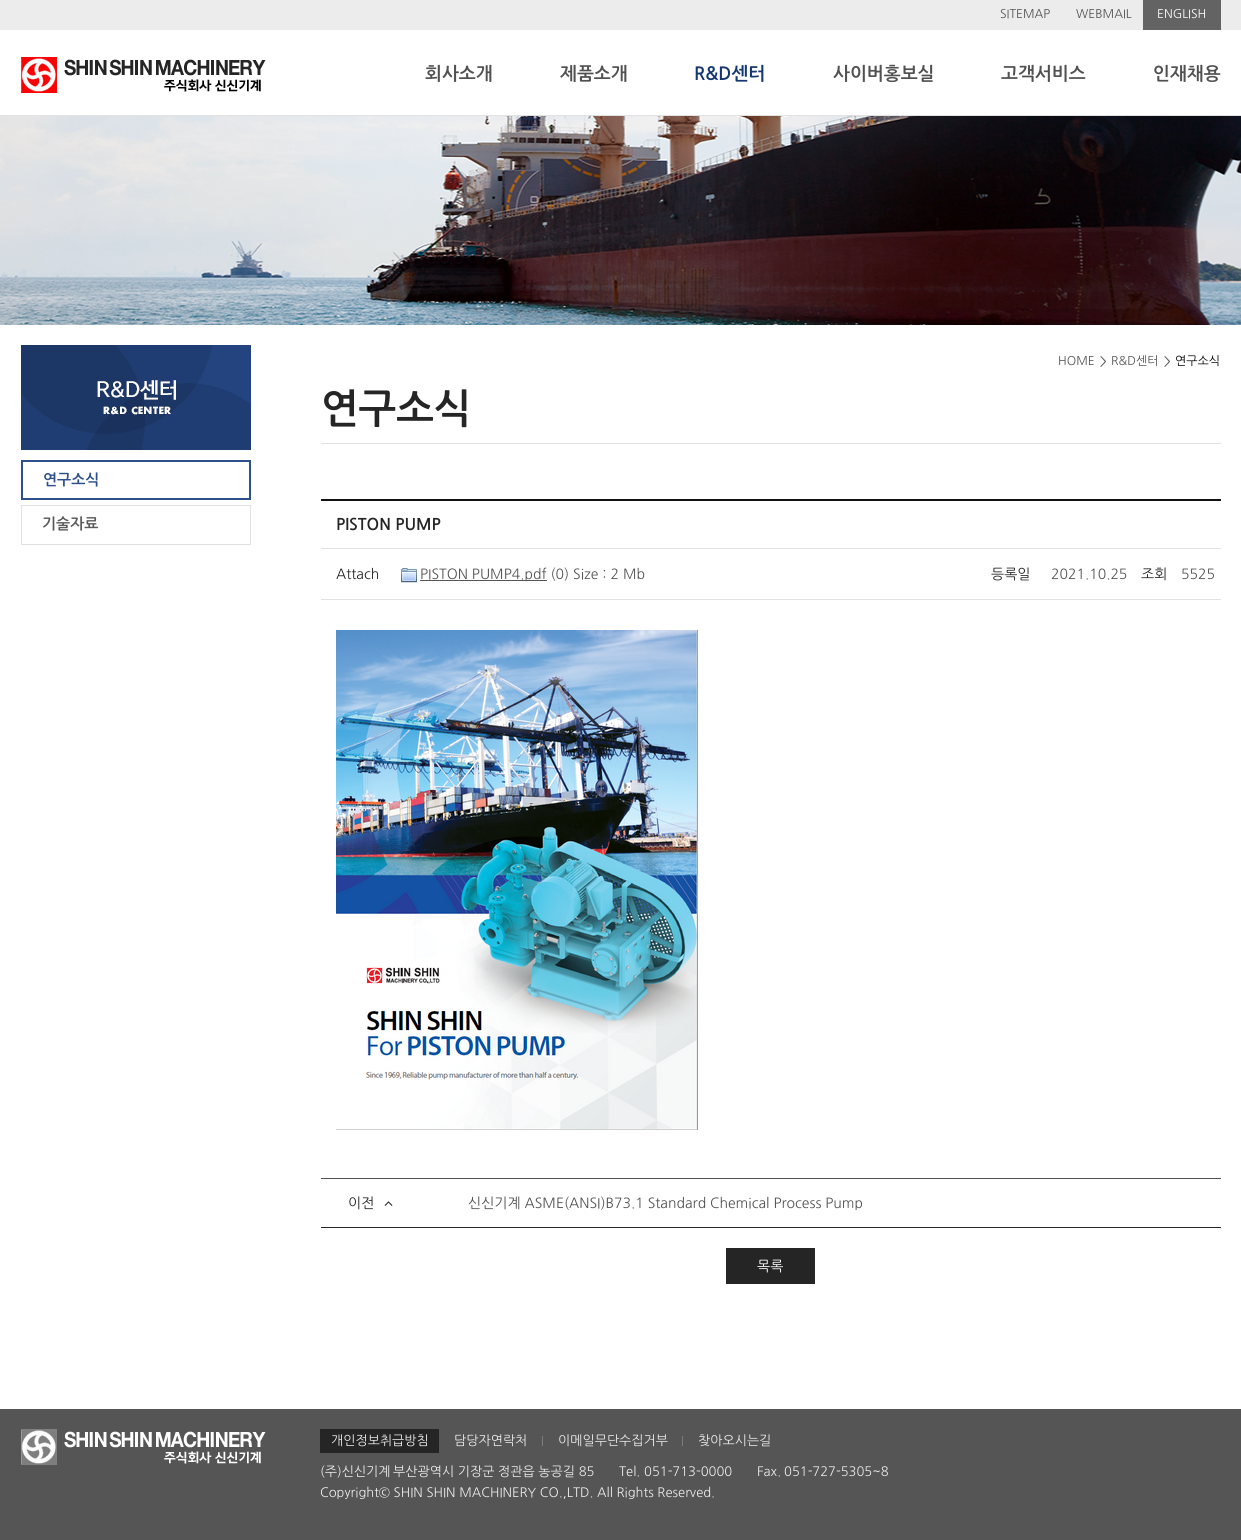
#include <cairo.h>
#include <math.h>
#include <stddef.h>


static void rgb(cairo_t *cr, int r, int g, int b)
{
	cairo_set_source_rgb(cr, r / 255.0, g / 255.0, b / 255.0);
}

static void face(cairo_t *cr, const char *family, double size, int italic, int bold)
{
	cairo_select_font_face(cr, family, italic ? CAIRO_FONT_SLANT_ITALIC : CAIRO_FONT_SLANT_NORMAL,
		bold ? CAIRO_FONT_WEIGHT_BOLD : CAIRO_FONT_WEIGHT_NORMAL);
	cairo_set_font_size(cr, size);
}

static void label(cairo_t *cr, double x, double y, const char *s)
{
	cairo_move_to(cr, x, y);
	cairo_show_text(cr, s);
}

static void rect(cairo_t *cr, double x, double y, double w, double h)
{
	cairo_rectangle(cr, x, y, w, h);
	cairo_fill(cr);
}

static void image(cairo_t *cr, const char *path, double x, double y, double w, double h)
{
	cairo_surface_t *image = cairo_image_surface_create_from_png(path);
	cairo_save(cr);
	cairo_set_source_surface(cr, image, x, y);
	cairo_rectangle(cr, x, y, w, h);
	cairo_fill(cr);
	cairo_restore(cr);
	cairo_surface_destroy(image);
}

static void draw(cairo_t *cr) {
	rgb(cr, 255, 255, 255);
	cairo_paint(cr);
	rgb(cr, 236, 236, 236);
	rect(cr, 0, 0, 1241, 30);
	face(cr, "NanumGothic", 12, 0, 0);
	rgb(cr, 81, 81, 81);
	label(cr, 1000, 18, "SITEMAP");
	label(cr, 1076, 18, "WEBMAIL");
	rgb(cr, 99, 99, 99);
	rect(cr, 1143, 0, 78, 30);
	rgb(cr, 255, 255, 255);
	label(cr, 1157, 18, "ENGLISH");
	rgb(cr, 226, 226, 226);
	rect(cr, 0, 115, 1241, 1);
	image(cr, "image0.png", 21, 57, 245, 36);
	face(cr, "NanumGothic", 18, 0, 1);
	rgb(cr, 81, 81, 81);
	label(cr, 425, 80, "회사소개");
	label(cr, 560, 80, "제품소개");
	rgb(cr, 20, 55, 114);
	label(cr, 694, 80, "R&D센터");
	rgb(cr, 81, 81, 81);
	label(cr, 833, 80, "사이버홍보실");
	label(cr, 1001, 80, "고객서비스");
	label(cr, 1153, 80, "인재채용");
	image(cr, "image1.png", 0, 116, 1241, 209);
	image(cr, "image2.png", 21, 345, 230, 105);
	cairo_rectangle(cr, 22, 461, 228, 38);
	rgb(cr, 45, 80, 138);
	cairo_stroke(cr);
	face(cr, "NanumGothic", 15, 0, 1);
	label(cr, 43, 485, "연구소식");
	cairo_rectangle(cr, 21.5, 505.5, 229, 39);
	rgb(cr, 225, 225, 225);
	cairo_set_line_width(cr, 1);
	cairo_stroke(cr);
	rgb(cr, 90, 90, 90);
	label(cr, 42, 529, "기술자료");
	face(cr, "NanumGothic", 12, 0, 0);
	rgb(cr, 81, 81, 81);
	label(cr, 1058, 365, "HOME");
	image(cr, "image3.png", 1100, 356, 6, 11);
	label(cr, 1111, 365, "R&D센터");
	image(cr, "image3.png", 1164, 356, 6, 11);
	rgb(cr, 0, 0, 0);
	label(cr, 1175, 365, "연구소식");
	rgb(cr, 225, 225, 225);
	rect(cr, 321, 443, 900, 1);
	face(cr, "NanumGothic", 40, 0, 1);
	rgb(cr, 37, 37, 37);
	label(cr, 321, 423, "연구소식");
	rgb(cr, 17, 17, 17);
	rect(cr, 321, 499, 900, 2);
	rgb(cr, 81, 81, 81);
	rect(cr, 321, 1178, 900, 1);
	rgb(cr, 226, 226, 226);
	rect(cr, 321, 548, 900, 1);
	face(cr, "NanumGothic", 16, 0, 1);
	rgb(cr, 37, 37, 37);
	label(cr, 336, 530, "PISTON PUMP");
	rgb(cr, 226, 226, 226);
	rect(cr, 321, 599, 900, 1);
	face(cr, "NanumGothic", 14, 0, 0);
	rgb(cr, 37, 37, 37);
	label(cr, 336, 579, "Attach");
	image(cr, "image4.png", 401, 568, 16, 15);
	rgb(cr, 85, 85, 85);
	rect(cr, 420, 580, 127, 1);
	rgb(cr, 81, 81, 81);
	label(cr, 420, 579, "PISTON PUMP4.pdf (0) Size : 2 Mb");
	rgb(cr, 37, 37, 37);
	label(cr, 991, 579, "등록일");
	rgb(cr, 81, 81, 81);
	label(cr, 1051, 579, "2021.10.25");
	rgb(cr, 37, 37, 37);
	label(cr, 1141, 579, "조회");
	rgb(cr, 81, 81, 81);
	label(cr, 1181, 579, "5525");
	image(cr, "image5.png", 336, 630, 362, 500);
	rgb(cr, 37, 37, 37);
	rect(cr, 321, 1227, 900, 1);
	label(cr, 348, 1208, "이전");
	image(cr, "image6.png", 384, 1201, 9, 5);
	rgb(cr, 81, 81, 81);
	label(cr, 468, 1208, "신신기계 ASME(ANSI)B73.1 Standard Chemical Process Pump");
	rgb(cr, 37, 37, 37);
	rect(cr, 726, 1248, 89, 36);
	rgb(cr, 255, 255, 255);
	label(cr, 757, 1271, "목록");
	rgb(cr, 85, 85, 85);
	rect(cr, 0, 1409, 1241, 131);
	image(cr, "image7.png", 21, 1429, 245, 36);
	rgb(cr, 37, 37, 37);
	rect(cr, 320, 1429, 119, 24);
	face(cr, "NanumGothic", 13, 0, 0);
	rgb(cr, 235, 235, 235);
	label(cr, 331, 1445, "개인정보취급방침");
	rgb(cr, 124, 124, 124);
	rect(cr, 542, 1436, 1, 10);
	rgb(cr, 235, 235, 235);
	label(cr, 454, 1445, "담당자연락처");
	rgb(cr, 124, 124, 124);
	rect(cr, 682, 1436, 1, 10);
	rgb(cr, 235, 235, 235);
	label(cr, 558, 1445, "이메일무단수집거부");
	label(cr, 698, 1445, "찾아오시는길");
	label(cr, 320, 1476, "(주)신신기계");
	label(cr, 393, 1476, "부산광역시 기장군 정관읍 농공길 85");
	label(cr, 619, 1476, "Tel.");
	label(cr, 644, 1476, "051-713-0000");
	label(cr, 757, 1476, "Fax.");
	label(cr, 784, 1476, "051-727-5305~8");
	label(cr, 320, 1497, "Copyright© SHIN SHIN MACHINERY CO.,LTD. All Rights Reserved.");
}

int main(void) {
	cairo_surface_t *surface = cairo_image_surface_create(CAIRO_FORMAT_RGB24, 1241, 1540);
	cairo_t *cr = cairo_create(surface);
	cairo_font_options_t *options = cairo_font_options_create();
	cairo_font_options_set_hint_metrics(options, CAIRO_HINT_METRICS_OFF);
	cairo_font_options_set_hint_style(options, CAIRO_HINT_STYLE_NONE);
	cairo_set_font_options(cr, options);
	cairo_set_miter_limit(cr, 4);
	draw(cr);
	cairo_surface_write_to_png(surface, "render.png");
	cairo_font_options_destroy(options);
	cairo_destroy(cr);
	cairo_surface_destroy(surface);
	return 0;
}
